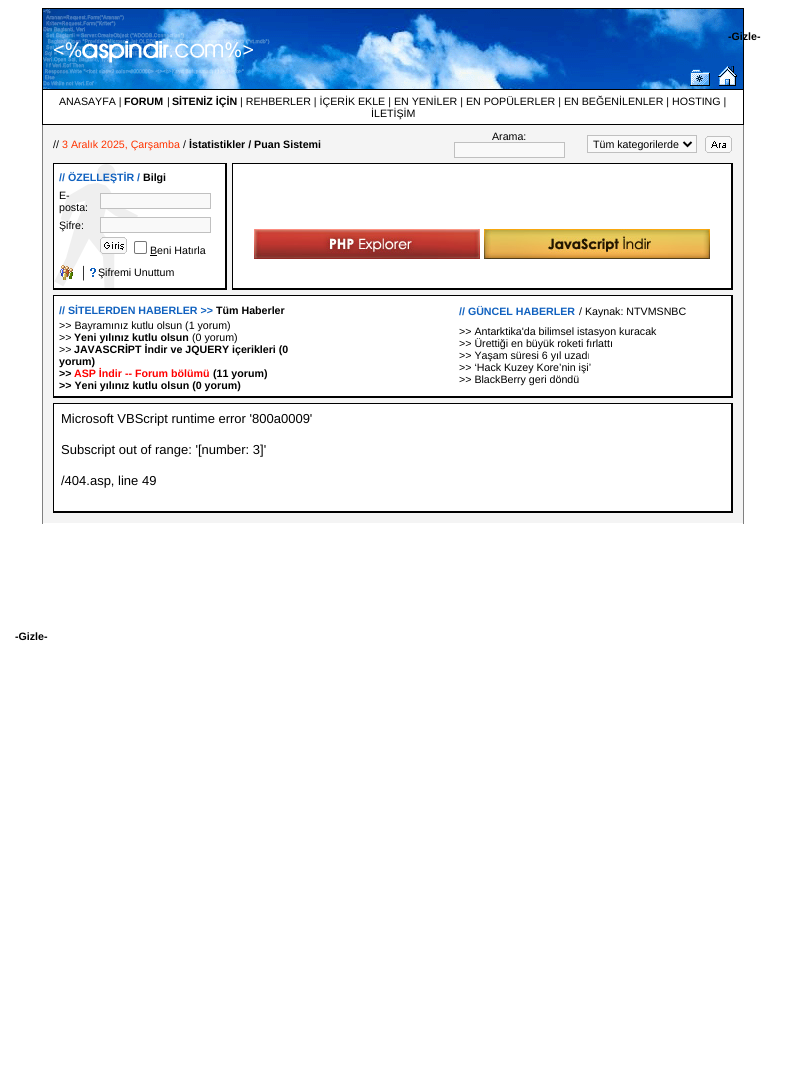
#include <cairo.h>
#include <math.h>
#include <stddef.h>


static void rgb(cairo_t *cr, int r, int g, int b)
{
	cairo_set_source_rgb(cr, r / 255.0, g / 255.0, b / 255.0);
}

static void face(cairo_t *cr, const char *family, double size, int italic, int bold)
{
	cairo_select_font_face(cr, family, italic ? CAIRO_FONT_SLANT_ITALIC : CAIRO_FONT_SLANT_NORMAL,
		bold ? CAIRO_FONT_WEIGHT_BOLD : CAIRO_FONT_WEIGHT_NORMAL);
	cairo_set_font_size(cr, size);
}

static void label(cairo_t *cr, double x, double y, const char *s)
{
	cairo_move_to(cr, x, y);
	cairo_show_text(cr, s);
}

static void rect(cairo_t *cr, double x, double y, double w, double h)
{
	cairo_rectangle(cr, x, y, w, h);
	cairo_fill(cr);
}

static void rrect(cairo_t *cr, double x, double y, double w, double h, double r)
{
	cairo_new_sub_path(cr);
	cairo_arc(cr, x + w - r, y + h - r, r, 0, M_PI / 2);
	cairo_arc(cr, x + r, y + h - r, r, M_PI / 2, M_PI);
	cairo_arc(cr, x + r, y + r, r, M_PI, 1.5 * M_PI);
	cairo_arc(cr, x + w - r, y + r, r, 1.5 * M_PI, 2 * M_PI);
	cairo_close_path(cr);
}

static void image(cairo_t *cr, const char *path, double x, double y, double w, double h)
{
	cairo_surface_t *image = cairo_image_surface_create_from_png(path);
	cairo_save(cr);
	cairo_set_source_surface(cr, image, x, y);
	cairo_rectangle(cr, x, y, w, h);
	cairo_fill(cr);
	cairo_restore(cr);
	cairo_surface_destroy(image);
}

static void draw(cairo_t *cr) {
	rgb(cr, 255, 255, 255);
	cairo_paint(cr);
	rgb(cr, 0, 0, 0);
	rect(cr, 42, 8, 702, 1);
	rect(cr, 42, 89, 702, 1);
	rgb(cr, 128, 128, 128);
	rect(cr, 743, 124, 1, 400);
	rgb(cr, 0, 0, 0);
	rect(cr, 743, 89, 1, 36);
	rect(cr, 743, 8, 1, 82);
	image(cr, "image0.png", 43, 9, 700, 80);
	face(cr, "Liberation Sans", 10.65, 0, 1);
	label(cr, 728, 40, "-Gizle-");
	rgb(cr, 244, 244, 244);
	rect(cr, 43, 125, 700, 398);
	rgb(cr, 128, 128, 128);
	rect(cr, 42, 124, 1, 400);
	rgb(cr, 0, 0, 0);
	rect(cr, 42, 124, 702, 1);
	rect(cr, 42, 89, 1, 36);
	rect(cr, 42, 8, 1, 82);
	face(cr, "Liberation Sans", 10.65, 0, 0);
	label(cr, 59, 105, "ANASAYFA |");
	face(cr, "Liberation Sans", 10.65, 0, 1);
	label(cr, 124, 105, "FORUM");
	face(cr, "Liberation Sans", 10.65, 0, 0);
	label(cr, 167, 105, "|");
	face(cr, "Liberation Sans", 10.65, 0, 1);
	label(cr, 172, 105, "SİTENİZ İÇİN");
	face(cr, "Liberation Sans", 10.65, 0, 0);
	label(cr, 240, 105, "| REHBERLER | İÇERİK EKLE | EN YENİLER | EN POPÜLERLER | EN BEĞENİLENLER | HOSTING |");
	label(cr, 371, 117, "İLETİŞİM");
	label(cr, 53, 148, "//");
	rgb(cr, 255, 51, 0);
	label(cr, 62, 148, "3 Aralık 2025, Çarşamba");
	rgb(cr, 0, 0, 0);
	label(cr, 183, 148, "/");
	face(cr, "Liberation Sans", 10.65, 0, 1);
	label(cr, 189, 148, "İstatistikler / Puan Sistemi");
	face(cr, "Liberation Sans", 10.65, 0, 0);
	label(cr, 492, 140, "Arama:");
	rgb(cr, 249, 249, 249);
	cairo_rectangle(cr, 454.5, 142.5, 110, 15);
	cairo_fill_preserve(cr);
	rgb(cr, 192, 192, 192);
	cairo_set_line_width(cr, 1);
	cairo_stroke(cr);
	rgb(cr, 249, 249, 249);
	cairo_rectangle(cr, 587.5, 135.5, 109, 17);
	cairo_fill_preserve(cr);
	rgb(cr, 192, 192, 192);
	cairo_stroke(cr);
	cairo_new_path(cr);
	cairo_move_to(cr, 683.5, 142);
	cairo_line_to(cr, 687.5, 146);
	cairo_line_to(cr, 691.5, 142);
	rgb(cr, 0, 0, 0);
	cairo_set_line_width(cr, 2);
	cairo_stroke(cr);
	label(cr, 593, 148, "Tüm kategorilerde");
	image(cr, "image1.png", 705, 136, 27, 17);
	rgb(cr, 255, 255, 255);
	rect(cr, 138, 164, 87, 124);
	image(cr, "image2.png", 54, 164, 84, 124);
	rgb(cr, 0, 0, 0);
	rect(cr, 53, 163, 174, 1);
	rect(cr, 225, 163, 2, 127);
	rect(cr, 53, 288, 174, 2);
	rect(cr, 53, 163, 1, 127);
	face(cr, "Liberation Sans", 10.65, 0, 1);
	rgb(cr, 16, 97, 191);
	label(cr, 59, 181, "// ÖZELLEŞTİR /");
	rgb(cr, 0, 0, 0);
	label(cr, 143, 181, "Bilgi");
	face(cr, "Liberation Sans", 10.65, 0, 0);
	label(cr, 59, 199, "E-");
	label(cr, 59, 211, "posta:");
	rgb(cr, 249, 249, 249);
	cairo_rectangle(cr, 100.5, 193.5, 110, 15);
	cairo_fill_preserve(cr);
	rgb(cr, 192, 192, 192);
	cairo_set_line_width(cr, 1);
	cairo_stroke(cr);
	rgb(cr, 0, 0, 0);
	label(cr, 59, 229, "Şifre:");
	rgb(cr, 249, 249, 249);
	cairo_rectangle(cr, 100.5, 217.5, 110, 15);
	cairo_fill_preserve(cr);
	rgb(cr, 192, 192, 192);
	cairo_stroke(cr);
	image(cr, "image3.png", 100, 237, 27, 17);
	rrect(cr, 134.5, 241.5, 12, 12, 1.5);
	rgb(cr, 118, 118, 118);
	cairo_stroke(cr);
	rgb(cr, 0, 0, 0);
	label(cr, 150, 254, "Beni Hatırla");
	rect(cr, 150, 255, 7, 1);
	image(cr, "image4.png", 60, 265, 13, 15);
	face(cr, "Liberation Serif", 16, 0, 0);
	label(cr, 82, 277, "|");
	image(cr, "image5.png", 90, 268, 6, 9);
	face(cr, "Liberation Sans", 10.65, 0, 0);
	label(cr, 98, 276, "Şifremi Unuttum");
	rgb(cr, 255, 255, 255);
	rect(cr, 233, 164, 498, 124);
	rgb(cr, 0, 0, 0);
	rect(cr, 232, 163, 501, 1);
	rect(cr, 731, 163, 2, 127);
	rect(cr, 232, 288, 501, 2);
	rect(cr, 232, 163, 1, 127);
	image(cr, "image6.png", 254, 229, 226, 30);
	image(cr, "image7.png", 484, 229, 226, 30);
	rgb(cr, 255, 255, 255);
	rect(cr, 54, 296, 677, 100);
	rgb(cr, 0, 0, 0);
	rect(cr, 53, 295, 680, 1);
	rect(cr, 731, 295, 2, 103);
	rect(cr, 53, 396, 680, 2);
	rect(cr, 53, 295, 1, 103);
	face(cr, "Liberation Sans", 10.65, 0, 1);
	rgb(cr, 16, 97, 191);
	label(cr, 59, 314, "// SİTELERDEN HABERLER >>");
	rgb(cr, 0, 0, 0);
	label(cr, 216, 314, "Tüm Haberler");
	rgb(cr, 16, 97, 191);
	label(cr, 459, 315, "// GÜNCEL HABERLER");
	face(cr, "Liberation Sans", 10.65, 0, 0);
	rgb(cr, 0, 0, 0);
	label(cr, 579, 315, "/ Kaynak: NTVMSNBC");
	label(cr, 59, 329, ">> Bayramınız kutlu olsun (1 yorum)");
	label(cr, 59, 341, ">>");
	face(cr, "Liberation Sans", 10.65, 0, 1);
	label(cr, 74, 341, "Yeni yılınız kutlu olsun");
	face(cr, "Liberation Sans", 10.65, 0, 0);
	label(cr, 192, 341, "(0 yorum)");
	label(cr, 59, 353, ">>");
	face(cr, "Liberation Sans", 10.65, 0, 1);
	label(cr, 74, 353, "JAVASCRİPT İndir ve JQUERY içerikleri (0");
	label(cr, 59, 365, "yorum)");
	label(cr, 59, 377, ">>");
	rgb(cr, 255, 0, 0);
	label(cr, 74, 377, "ASP İndir -- Forum bölümü");
	rgb(cr, 0, 0, 0);
	label(cr, 213, 377, "(11 yorum)");
	label(cr, 59, 389, ">> Yeni yılınız kutlu olsun (0 yorum)");
	face(cr, "Liberation Sans", 10.65, 0, 0);
	label(cr, 459, 335, ">> Antarktika'da bilimsel istasyon kuracak");
	label(cr, 459, 347, ">> Ürettiği en büyük roketi fırlattı");
	label(cr, 459, 359, ">> Yaşam süresi 6 yıl uzadı");
	label(cr, 459, 371, ">> ‘Hack Kuzey Kore’nin işi’");
	label(cr, 459, 383, ">> BlackBerry geri döndü");
	rgb(cr, 255, 255, 255);
	rect(cr, 54, 404, 677, 107);
	rgb(cr, 0, 0, 0);
	rect(cr, 53, 403, 680, 1);
	rect(cr, 731, 403, 2, 110);
	rect(cr, 53, 511, 680, 2);
	rect(cr, 53, 403, 1, 110);
	face(cr, "Liberation Sans", 13, 0, 0);
	label(cr, 61, 423, "Microsoft VBScript runtime error '800a0009'");
	label(cr, 61, 454, "Subscript out of range: '[number: 3]'");
	label(cr, 61, 485, "/404.asp, line 49");
	face(cr, "Liberation Sans", 10.65, 0, 1);
	label(cr, 15, 640, "-Gizle-");
}

int main(void) {
	cairo_surface_t *surface = cairo_image_surface_create(CAIRO_FORMAT_RGB24, 786, 1084);
	cairo_t *cr = cairo_create(surface);
	cairo_font_options_t *options = cairo_font_options_create();
	cairo_font_options_set_hint_metrics(options, CAIRO_HINT_METRICS_OFF);
	cairo_font_options_set_hint_style(options, CAIRO_HINT_STYLE_NONE);
	cairo_set_font_options(cr, options);
	cairo_set_miter_limit(cr, 4);
	draw(cr);
	cairo_surface_write_to_png(surface, "render.png");
	cairo_font_options_destroy(options);
	cairo_destroy(cr);
	cairo_surface_destroy(surface);
	return 0;
}
